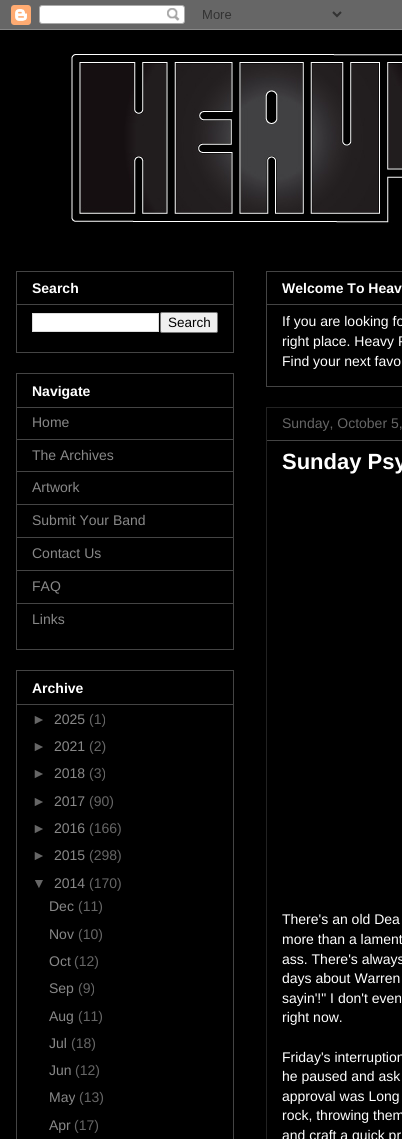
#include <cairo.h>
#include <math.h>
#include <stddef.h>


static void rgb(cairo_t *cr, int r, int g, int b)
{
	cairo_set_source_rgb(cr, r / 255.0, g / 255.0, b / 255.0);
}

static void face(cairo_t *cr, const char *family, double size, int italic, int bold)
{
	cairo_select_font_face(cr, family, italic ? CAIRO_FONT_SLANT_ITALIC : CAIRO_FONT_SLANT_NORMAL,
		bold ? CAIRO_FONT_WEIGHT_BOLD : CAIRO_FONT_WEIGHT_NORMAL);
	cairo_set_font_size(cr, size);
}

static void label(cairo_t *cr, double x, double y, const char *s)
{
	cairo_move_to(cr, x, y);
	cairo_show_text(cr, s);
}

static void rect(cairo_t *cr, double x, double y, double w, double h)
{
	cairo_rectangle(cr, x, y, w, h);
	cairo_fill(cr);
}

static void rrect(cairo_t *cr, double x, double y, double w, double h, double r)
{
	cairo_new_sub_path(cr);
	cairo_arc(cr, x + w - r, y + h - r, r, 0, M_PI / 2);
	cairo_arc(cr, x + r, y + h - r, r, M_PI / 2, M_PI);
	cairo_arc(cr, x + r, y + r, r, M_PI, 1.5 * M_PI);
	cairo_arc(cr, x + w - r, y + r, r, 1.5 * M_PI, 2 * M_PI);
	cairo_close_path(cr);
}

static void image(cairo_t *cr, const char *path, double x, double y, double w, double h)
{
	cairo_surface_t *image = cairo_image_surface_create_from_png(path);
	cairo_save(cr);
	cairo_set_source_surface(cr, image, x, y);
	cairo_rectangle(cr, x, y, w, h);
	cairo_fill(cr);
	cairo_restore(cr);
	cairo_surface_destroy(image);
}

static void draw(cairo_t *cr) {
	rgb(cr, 0, 0, 0);
	cairo_paint(cr);
	image(cr, "image0.png", 0, 0, 402, 30);
	image(cr, "image1.png", 71, 54, 331, 169);
	cairo_rectangle(cr, 16.5, 271.5, 217, 81);
	rgb(cr, 68, 68, 68);
	cairo_set_line_width(cr, 1);
	cairo_stroke(cr);
	face(cr, "Liberation Sans", 14, 0, 1);
	rgb(cr, 255, 255, 255);
	label(cr, 32, 293, "Search");
	rgb(cr, 68, 68, 68);
	rect(cr, 17, 304, 216, 1);
	rgb(cr, 255, 255, 255);
	cairo_rectangle(cr, 32.5, 313.5, 126, 18);
	cairo_fill_preserve(cr);
	rgb(cr, 221, 221, 221);
	cairo_stroke(cr);
	rgb(cr, 239, 239, 239);
	rrect(cr, 160.5, 312.5, 57, 20, 1.5);
	cairo_fill_preserve(cr);
	rgb(cr, 118, 118, 118);
	cairo_stroke(cr);
	face(cr, "Liberation Sans", 13.5, 0, 0);
	rgb(cr, 0, 0, 0);
	label(cr, 168, 327, "Search");
	cairo_rectangle(cr, 16.5, 373.5, 217, 276);
	rgb(cr, 68, 68, 68);
	cairo_stroke(cr);
	face(cr, "Liberation Sans", 14, 0, 1);
	rgb(cr, 255, 255, 255);
	label(cr, 32, 396, "Navigate");
	rgb(cr, 68, 68, 68);
	rect(cr, 17, 407, 216, 1);
	face(cr, "Liberation Sans", 14, 0, 0);
	rgb(cr, 136, 136, 136);
	label(cr, 32, 427, "Home");
	rgb(cr, 68, 68, 68);
	rect(cr, 17, 439, 216, 1);
	rgb(cr, 136, 136, 136);
	label(cr, 32, 460, "The Archives");
	rgb(cr, 68, 68, 68);
	rect(cr, 17, 471, 216, 1);
	rgb(cr, 136, 136, 136);
	label(cr, 32, 492, "Artwork");
	rgb(cr, 68, 68, 68);
	rect(cr, 17, 504, 216, 1);
	rgb(cr, 136, 136, 136);
	label(cr, 32, 525, "Submit Your Band");
	rgb(cr, 68, 68, 68);
	rect(cr, 17, 537, 216, 1);
	rgb(cr, 136, 136, 136);
	label(cr, 32, 558, "Contact Us");
	rgb(cr, 68, 68, 68);
	rect(cr, 17, 570, 216, 1);
	rgb(cr, 136, 136, 136);
	label(cr, 32, 591, "FAQ");
	rgb(cr, 68, 68, 68);
	rect(cr, 17, 603, 216, 1);
	rgb(cr, 136, 136, 136);
	label(cr, 32, 624, "Links");
	cairo_rectangle(cr, 16.5, 670.5, 217, 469);
	rgb(cr, 68, 68, 68);
	cairo_stroke(cr);
	face(cr, "Liberation Sans", 14, 0, 1);
	rgb(cr, 255, 255, 255);
	label(cr, 32, 693, "Archive");
	rgb(cr, 68, 68, 68);
	rect(cr, 17, 704, 216, 1);
	face(cr, "Liberation Sans", 14, 0, 0);
	rgb(cr, 102, 102, 102);
	label(cr, 32, 724, "►");
	rgb(cr, 136, 136, 136);
	label(cr, 54, 724, "2025");
	rgb(cr, 102, 102, 102);
	label(cr, 89, 724, "(1)");
	label(cr, 32, 751, "►");
	rgb(cr, 136, 136, 136);
	label(cr, 54, 751, "2021");
	rgb(cr, 102, 102, 102);
	label(cr, 89, 751, "(2)");
	label(cr, 32, 778, "►");
	rgb(cr, 136, 136, 136);
	label(cr, 54, 778, "2018");
	rgb(cr, 102, 102, 102);
	label(cr, 89, 778, "(3)");
	label(cr, 32, 806, "►");
	rgb(cr, 136, 136, 136);
	label(cr, 54, 806, "2017");
	rgb(cr, 102, 102, 102);
	label(cr, 89, 806, "(90)");
	label(cr, 32, 833, "►");
	rgb(cr, 136, 136, 136);
	label(cr, 54, 833, "2016");
	rgb(cr, 102, 102, 102);
	label(cr, 89, 833, "(166)");
	label(cr, 32, 860, "►");
	rgb(cr, 136, 136, 136);
	label(cr, 54, 860, "2015");
	rgb(cr, 102, 102, 102);
	label(cr, 89, 860, "(298)");
	label(cr, 32, 888, "▼");
	rgb(cr, 136, 136, 136);
	label(cr, 54, 888, "2014");
	rgb(cr, 102, 102, 102);
	label(cr, 89, 888, "(170)");
	rgb(cr, 136, 136, 136);
	label(cr, 49, 911, "Dec");
	rgb(cr, 102, 102, 102);
	label(cr, 78, 911, "(11)");
	rgb(cr, 136, 136, 136);
	label(cr, 49, 939, "Nov");
	rgb(cr, 102, 102, 102);
	label(cr, 78, 939, "(10)");
	rgb(cr, 136, 136, 136);
	label(cr, 49, 966, "Oct");
	rgb(cr, 102, 102, 102);
	label(cr, 74, 966, "(12)");
	rgb(cr, 136, 136, 136);
	label(cr, 49, 993, "Sep");
	rgb(cr, 102, 102, 102);
	label(cr, 78, 993, "(9)");
	rgb(cr, 136, 136, 136);
	label(cr, 49, 1021, "Aug");
	rgb(cr, 102, 102, 102);
	label(cr, 78, 1021, "(11)");
	rgb(cr, 136, 136, 136);
	label(cr, 49, 1048, "Jul");
	rgb(cr, 102, 102, 102);
	label(cr, 71, 1048, "(18)");
	rgb(cr, 136, 136, 136);
	label(cr, 49, 1075, "Jun");
	rgb(cr, 102, 102, 102);
	label(cr, 75, 1075, "(12)");
	rgb(cr, 136, 136, 136);
	label(cr, 49, 1102, "May");
	rgb(cr, 102, 102, 102);
	label(cr, 79, 1102, "(13)");
	rgb(cr, 136, 136, 136);
	label(cr, 49, 1130, "Apr");
	rgb(cr, 102, 102, 102);
	label(cr, 74, 1130, "(17)");
	cairo_rectangle(cr, 266.5, 271.5, 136, 115);
	rgb(cr, 68, 68, 68);
	cairo_stroke(cr);
	face(cr, "Liberation Sans", 14, 0, 1);
	rgb(cr, 255, 255, 255);
	label(cr, 282, 293, "Welcome To Heav");
	rgb(cr, 68, 68, 68);
	rect(cr, 267, 304, 135, 1);
	face(cr, "Liberation Sans", 14, 0, 0);
	rgb(cr, 255, 255, 255);
	label(cr, 282, 326, "If you are looking fo");
	label(cr, 282, 346, "right place. Heavy P");
	label(cr, 282, 366, "Find your next favo");
	cairo_rectangle(cr, 266.5, 407.5, 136, 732);
	rgb(cr, 34, 34, 34);
	cairo_stroke(cr);
	rgb(cr, 102, 102, 102);
	label(cr, 282, 428, "Sunday, October 5,");
	rgb(cr, 68, 68, 68);
	rect(cr, 267, 440, 135, 1);
	face(cr, "Liberation Sans", 22, 0, 1);
	rgb(cr, 255, 255, 255);
	label(cr, 282, 469, "Sunday Psy");
	face(cr, "Liberation Sans", 14, 0, 0);
	label(cr, 282, 924, "There's an old Dea");
	label(cr, 282, 944, "more than a lament");
	label(cr, 282, 964, "ass. There's always");
	label(cr, 282, 983, "days about Warren");
	label(cr, 282, 1003, "sayin'!\" I don't even");
	label(cr, 282, 1022, "right now.");
	label(cr, 282, 1062, "Friday's interruption");
	label(cr, 282, 1081, "he paused and ask");
	label(cr, 282, 1101, "approval was Long");
	label(cr, 282, 1120, "rock, throwing them");
	label(cr, 282, 1140, "and craft a quick pr");
}

int main(void) {
	cairo_surface_t *surface = cairo_image_surface_create(CAIRO_FORMAT_RGB24, 402, 1139);
	cairo_t *cr = cairo_create(surface);
	cairo_font_options_t *options = cairo_font_options_create();
	cairo_font_options_set_hint_metrics(options, CAIRO_HINT_METRICS_OFF);
	cairo_font_options_set_hint_style(options, CAIRO_HINT_STYLE_NONE);
	cairo_set_font_options(cr, options);
	cairo_set_miter_limit(cr, 4);
	draw(cr);
	cairo_surface_write_to_png(surface, "render.png");
	cairo_font_options_destroy(options);
	cairo_destroy(cr);
	cairo_surface_destroy(surface);
	return 0;
}
